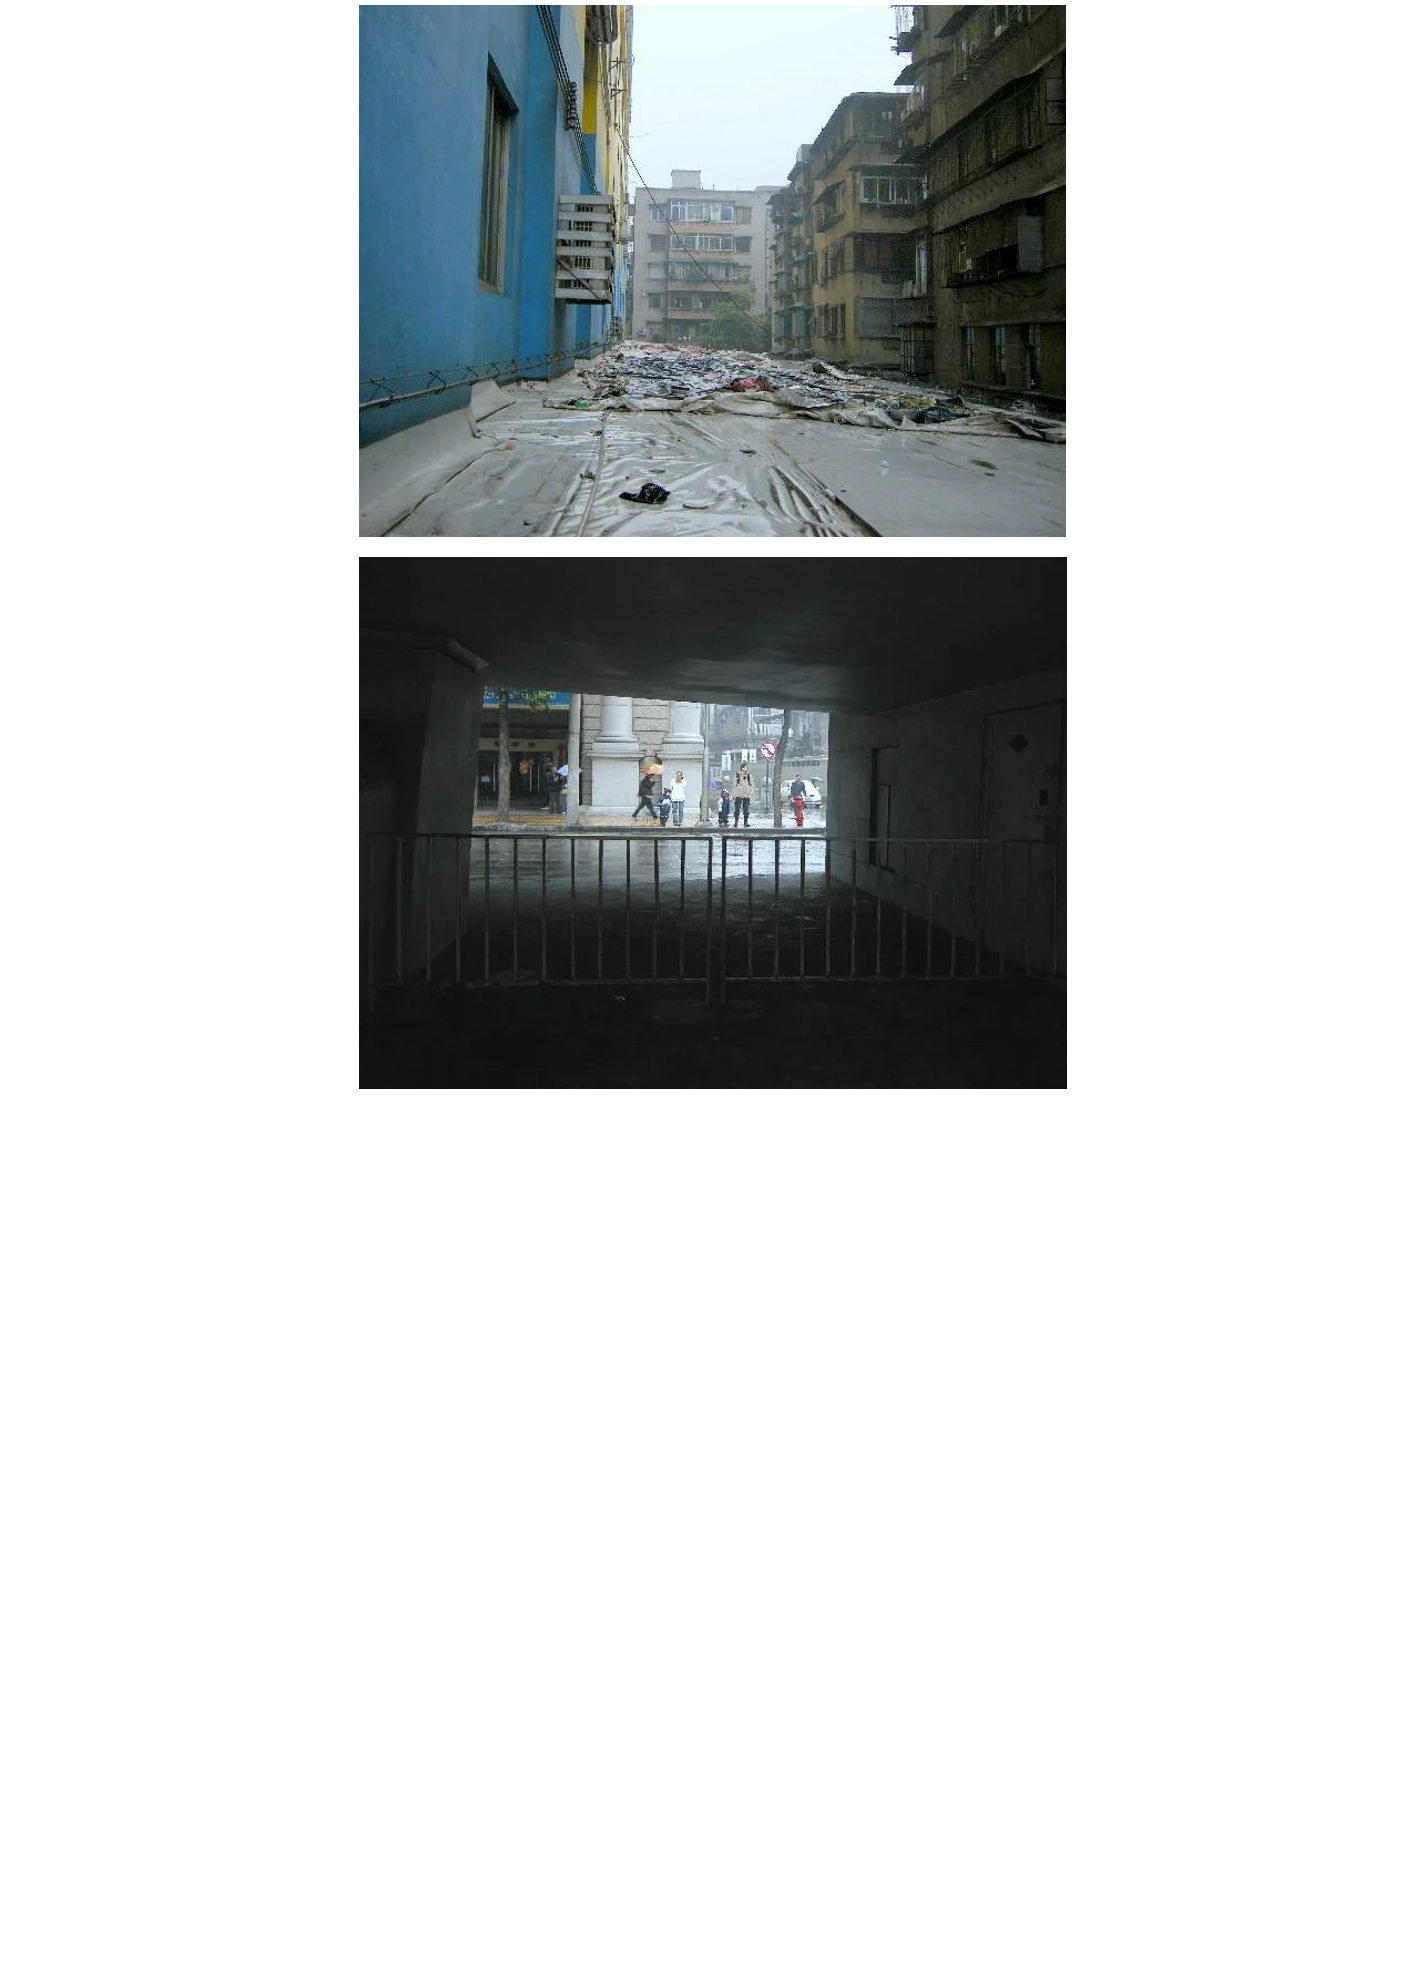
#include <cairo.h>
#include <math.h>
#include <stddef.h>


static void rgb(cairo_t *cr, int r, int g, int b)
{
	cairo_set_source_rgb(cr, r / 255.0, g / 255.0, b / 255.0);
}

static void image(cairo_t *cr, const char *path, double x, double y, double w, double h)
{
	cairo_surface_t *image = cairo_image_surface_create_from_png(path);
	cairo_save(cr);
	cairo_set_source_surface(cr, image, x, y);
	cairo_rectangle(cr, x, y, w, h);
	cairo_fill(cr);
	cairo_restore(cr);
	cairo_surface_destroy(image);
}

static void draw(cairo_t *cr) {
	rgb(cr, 255, 255, 255);
	cairo_paint(cr);
	image(cr, "image0.png", 359, 5, 707, 532);
	image(cr, "image1.png", 359, 557, 708, 532);
}

int main(void) {
	cairo_surface_t *surface = cairo_image_surface_create(CAIRO_FORMAT_RGB24, 1425, 1983);
	cairo_t *cr = cairo_create(surface);
	cairo_font_options_t *options = cairo_font_options_create();
	cairo_font_options_set_hint_metrics(options, CAIRO_HINT_METRICS_OFF);
	cairo_font_options_set_hint_style(options, CAIRO_HINT_STYLE_NONE);
	cairo_set_font_options(cr, options);
	cairo_set_miter_limit(cr, 4);
	draw(cr);
	cairo_surface_write_to_png(surface, "render.png");
	cairo_font_options_destroy(options);
	cairo_destroy(cr);
	cairo_surface_destroy(surface);
	return 0;
}
